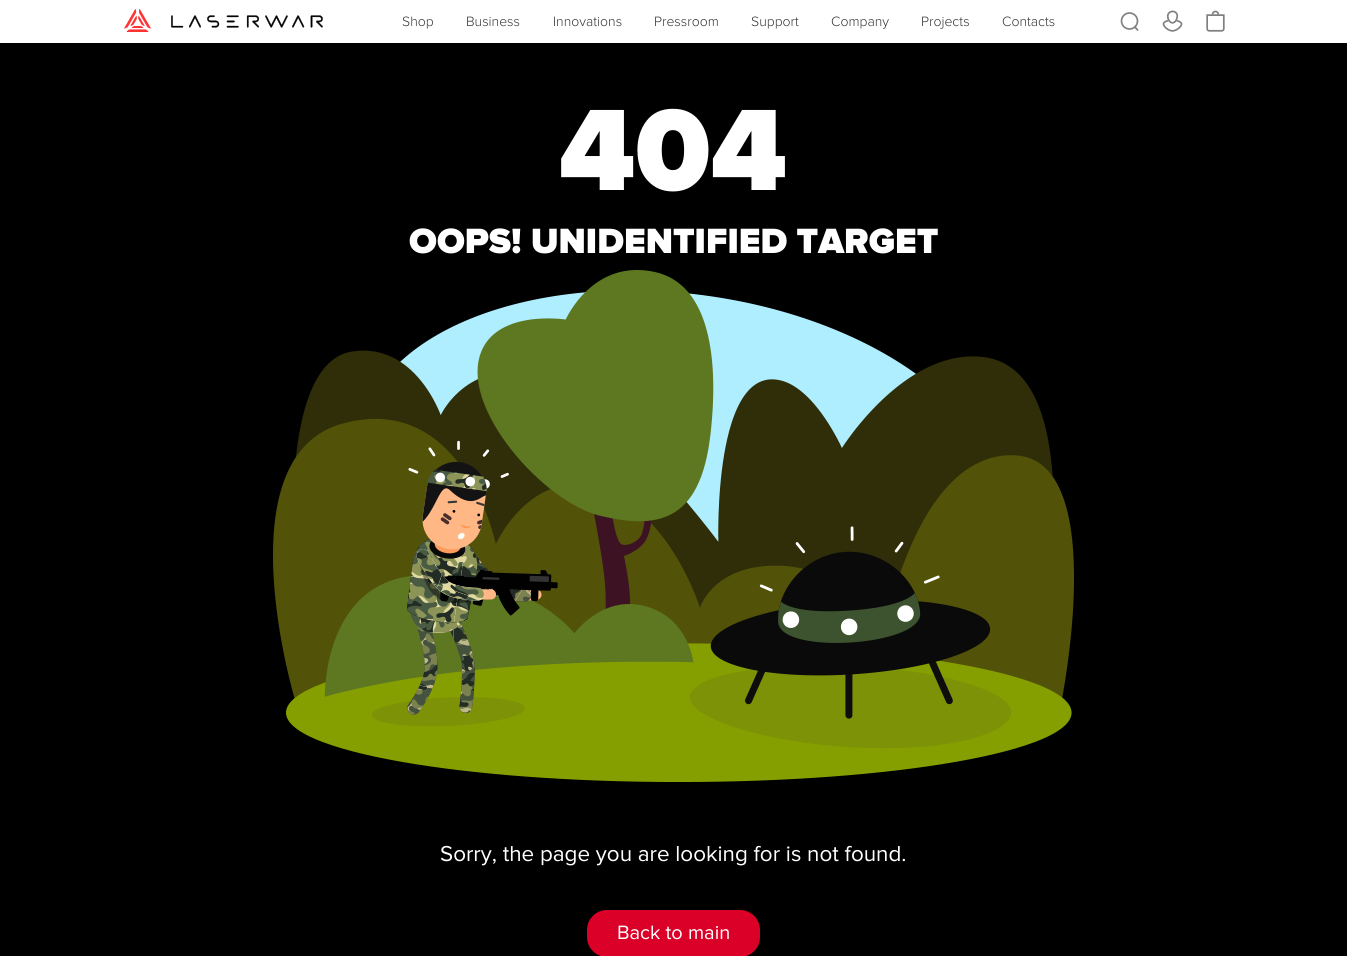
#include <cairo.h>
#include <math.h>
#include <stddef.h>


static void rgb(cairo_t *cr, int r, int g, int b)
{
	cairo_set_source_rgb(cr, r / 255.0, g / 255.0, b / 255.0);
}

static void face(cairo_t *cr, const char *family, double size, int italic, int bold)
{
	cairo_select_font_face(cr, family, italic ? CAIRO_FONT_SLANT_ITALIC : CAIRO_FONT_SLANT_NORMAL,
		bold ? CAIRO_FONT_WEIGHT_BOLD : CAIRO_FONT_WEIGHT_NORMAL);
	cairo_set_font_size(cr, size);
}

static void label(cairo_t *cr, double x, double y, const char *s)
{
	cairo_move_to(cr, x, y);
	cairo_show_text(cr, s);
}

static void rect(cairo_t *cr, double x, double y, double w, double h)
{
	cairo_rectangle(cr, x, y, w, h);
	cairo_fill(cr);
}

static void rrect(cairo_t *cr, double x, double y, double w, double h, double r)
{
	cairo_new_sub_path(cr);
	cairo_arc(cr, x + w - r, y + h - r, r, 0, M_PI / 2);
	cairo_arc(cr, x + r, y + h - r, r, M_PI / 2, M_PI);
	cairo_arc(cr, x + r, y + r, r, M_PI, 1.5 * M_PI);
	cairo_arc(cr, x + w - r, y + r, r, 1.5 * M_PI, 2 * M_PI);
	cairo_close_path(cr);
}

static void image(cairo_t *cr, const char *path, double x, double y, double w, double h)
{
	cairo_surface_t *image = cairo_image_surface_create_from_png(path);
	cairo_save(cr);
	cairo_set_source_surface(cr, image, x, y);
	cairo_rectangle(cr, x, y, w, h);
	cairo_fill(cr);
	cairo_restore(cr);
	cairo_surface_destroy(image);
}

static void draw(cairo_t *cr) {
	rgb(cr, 0, 0, 0);
	cairo_paint(cr);
	rgb(cr, 255, 255, 255);
	rect(cr, 0, 0, 1347, 43);
	image(cr, "image0.png", 124, 9, 27, 23);
	image(cr, "image1.png", 171, 15, 152, 13);
	face(cr, "Proxima Nova Light", 14, 0, 0);
	rgb(cr, 51, 51, 51);
	label(cr, 402, 26, "Shop");
	label(cr, 466, 26, "Business");
	label(cr, 553, 26, "Innovations");
	label(cr, 654, 26, "Pressroom");
	label(cr, 751, 26, "Support");
	label(cr, 831, 26, "Company");
	label(cr, 921, 26, "Projects");
	label(cr, 1002, 26, "Contacts");
	cairo_new_path(cr);
	cairo_arc(cr, 1129.5, 21, 8, 0, 2 * M_PI);
	rgb(cr, 128, 128, 128);
	cairo_set_line_width(cr, 1.7);
	cairo_stroke(cr);
	cairo_new_path(cr);
	cairo_move_to(cr, 1134.5, 26.5);
	cairo_line_to(cr, 1138, 30.5);
	cairo_stroke(cr);
	image(cr, "image2.png", 1162, 10, 21, 22);
	image(cr, "image3.png", 1206, 10, 19, 22);
	face(cr, "Proxima Nova Black", 120, 0, 0);
	rgb(cr, 255, 255, 255);
	label(cr, 559, 190, "404");
	face(cr, "Proxima Nova Black", 36.4, 0, 0);
	label(cr, 409, 253, "OOPS! UNIDENTIFIED TARGET");
	image(cr, "image4.png", 273, 270, 801, 512);
	face(cr, "Proxima Nova", 22.4, 0, 0);
	label(cr, 440, 861, "Sorry, the page you are looking for is not found.");
	rgb(cr, 219, 0, 39);
	rrect(cr, 588, 911, 171, 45, 19);
	cairo_fill_preserve(cr);
	cairo_set_line_width(cr, 2);
	cairo_stroke(cr);
	face(cr, "Proxima Nova", 20, 0, 0);
	rgb(cr, 255, 255, 255);
	label(cr, 617, 939, "Back to main");
}

int main(void) {
	cairo_surface_t *surface = cairo_image_surface_create(CAIRO_FORMAT_RGB24, 1347, 956);
	cairo_t *cr = cairo_create(surface);
	cairo_font_options_t *options = cairo_font_options_create();
	cairo_font_options_set_hint_metrics(options, CAIRO_HINT_METRICS_OFF);
	cairo_font_options_set_hint_style(options, CAIRO_HINT_STYLE_NONE);
	cairo_set_font_options(cr, options);
	cairo_set_miter_limit(cr, 4);
	draw(cr);
	cairo_surface_write_to_png(surface, "render.png");
	cairo_font_options_destroy(options);
	cairo_destroy(cr);
	cairo_surface_destroy(surface);
	return 0;
}
